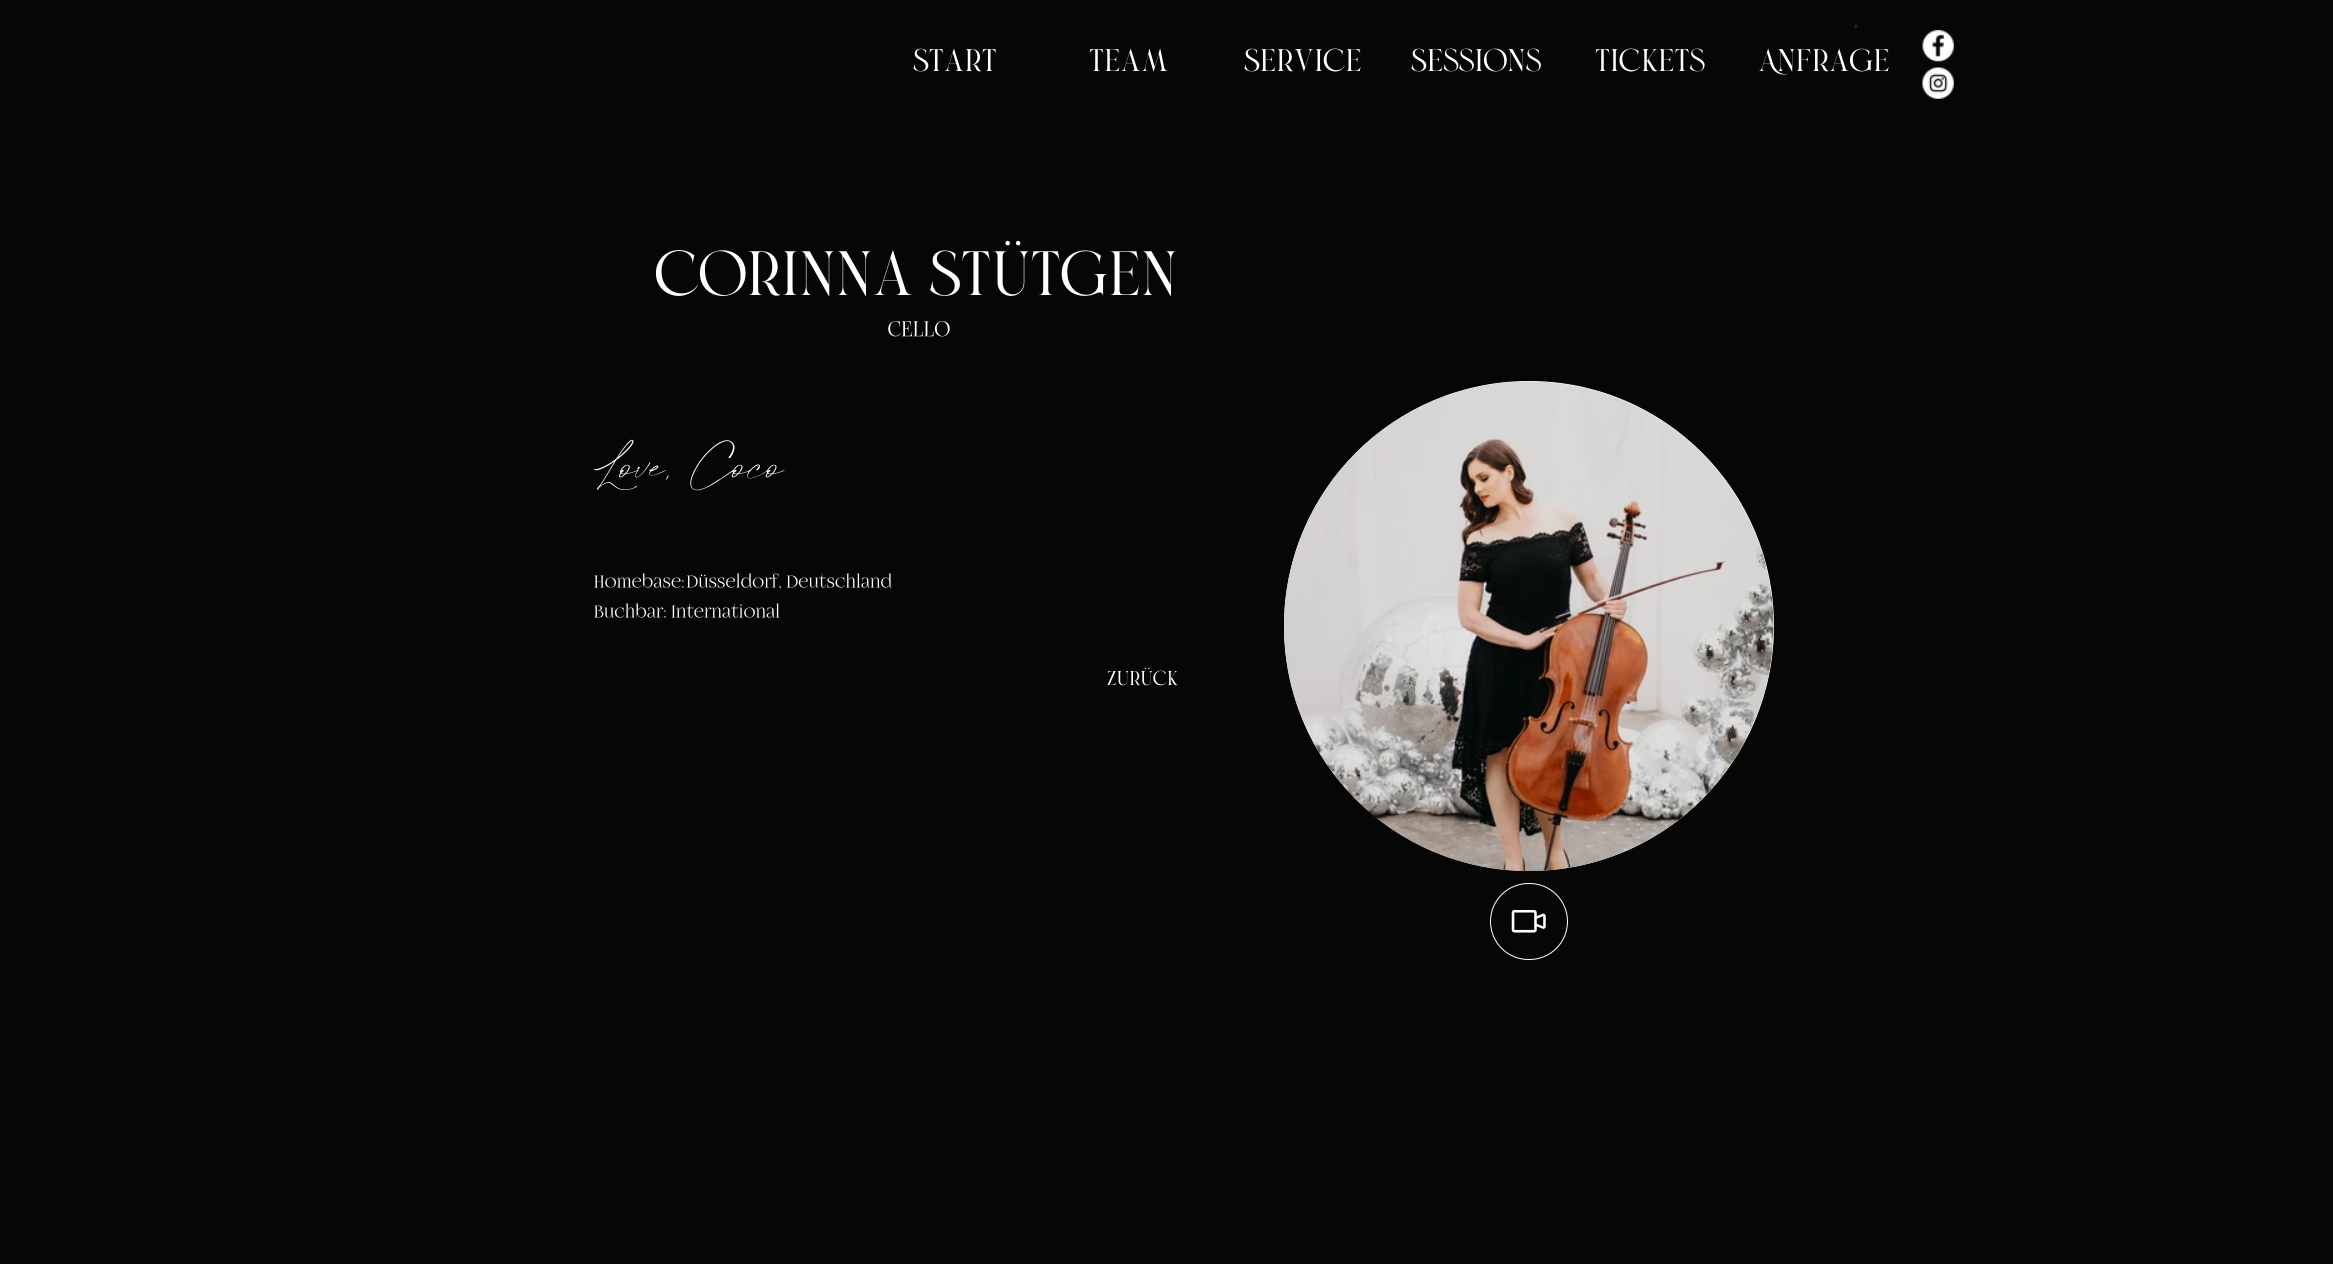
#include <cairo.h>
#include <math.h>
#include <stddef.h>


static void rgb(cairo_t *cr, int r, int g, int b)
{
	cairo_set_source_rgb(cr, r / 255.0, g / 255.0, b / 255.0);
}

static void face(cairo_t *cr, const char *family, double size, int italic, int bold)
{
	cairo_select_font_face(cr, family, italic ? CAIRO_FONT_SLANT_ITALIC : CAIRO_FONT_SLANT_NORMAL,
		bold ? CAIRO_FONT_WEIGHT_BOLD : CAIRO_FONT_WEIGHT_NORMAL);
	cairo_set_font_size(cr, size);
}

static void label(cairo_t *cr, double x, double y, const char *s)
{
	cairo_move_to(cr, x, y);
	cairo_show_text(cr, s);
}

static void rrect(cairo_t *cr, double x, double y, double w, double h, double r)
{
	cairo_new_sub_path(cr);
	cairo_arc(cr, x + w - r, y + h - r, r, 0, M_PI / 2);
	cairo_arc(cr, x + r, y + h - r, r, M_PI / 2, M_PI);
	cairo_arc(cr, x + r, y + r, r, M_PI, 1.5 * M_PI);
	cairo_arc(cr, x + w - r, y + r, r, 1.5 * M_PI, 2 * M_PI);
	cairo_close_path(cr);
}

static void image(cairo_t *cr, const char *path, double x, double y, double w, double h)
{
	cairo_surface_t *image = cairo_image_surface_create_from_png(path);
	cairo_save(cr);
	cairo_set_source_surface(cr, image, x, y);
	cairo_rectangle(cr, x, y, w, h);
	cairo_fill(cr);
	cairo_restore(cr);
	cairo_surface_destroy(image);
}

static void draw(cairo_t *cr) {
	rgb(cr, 7, 6, 6);
	cairo_paint(cr);
	image(cr, "image0.png", 1853, 23, 5, 6);
	face(cr, "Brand", 31.25, 0, 0);
	rgb(cr, 255, 255, 255);
	label(cr, 913, 71, "Start");
	label(cr, 1089, 71, "Team");
	label(cr, 1244, 71, "Service");
	label(cr, 1411, 71, "Sessions");
	label(cr, 1595, 71, "Tickets");
	label(cr, 1758, 71, "Anfrage");
	image(cr, "image1.png", 1922, 30, 32, 32);
	image(cr, "image2.png", 1922, 67, 32, 32);
	face(cr, "Brand", 62.5, 0, 0);
	label(cr, 655, 295, "Corinna Stütgen");
	image(cr, "image3.png", 888, 321, 62, 16);
	face(cr, "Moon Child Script", 75, 0, 0);
	label(cr, 594, 483, "Love, Coco");
	image(cr, "image4.png", 594, 573, 90, 15);
	image(cr, "image5.png", 686, 573, 206, 16);
	image(cr, "image6.png", 594, 603, 186, 15);
	face(cr, "Brand", 20, 0, 0);
	label(cr, 1107, 685, "Zurück");
	cairo_new_path(cr);
	cairo_arc(cr, 1529, 626, 245, 0, 2 * M_PI);
	cairo_fill(cr);
	image(cr, "image7.png", 1284, 381, 490, 490);
	rrect(cr, 1490.5, 883.5, 77, 76, 38);
	cairo_set_line_width(cr, 1);
	cairo_stroke(cr);
	image(cr, "image8.png", 1511, 910, 35, 23);
}

int main(void) {
	cairo_surface_t *surface = cairo_image_surface_create(CAIRO_FORMAT_RGB24, 2333, 1264);
	cairo_t *cr = cairo_create(surface);
	cairo_font_options_t *options = cairo_font_options_create();
	cairo_font_options_set_hint_metrics(options, CAIRO_HINT_METRICS_OFF);
	cairo_font_options_set_hint_style(options, CAIRO_HINT_STYLE_NONE);
	cairo_set_font_options(cr, options);
	cairo_set_miter_limit(cr, 4);
	draw(cr);
	cairo_surface_write_to_png(surface, "render.png");
	cairo_font_options_destroy(options);
	cairo_destroy(cr);
	cairo_surface_destroy(surface);
	return 0;
}
